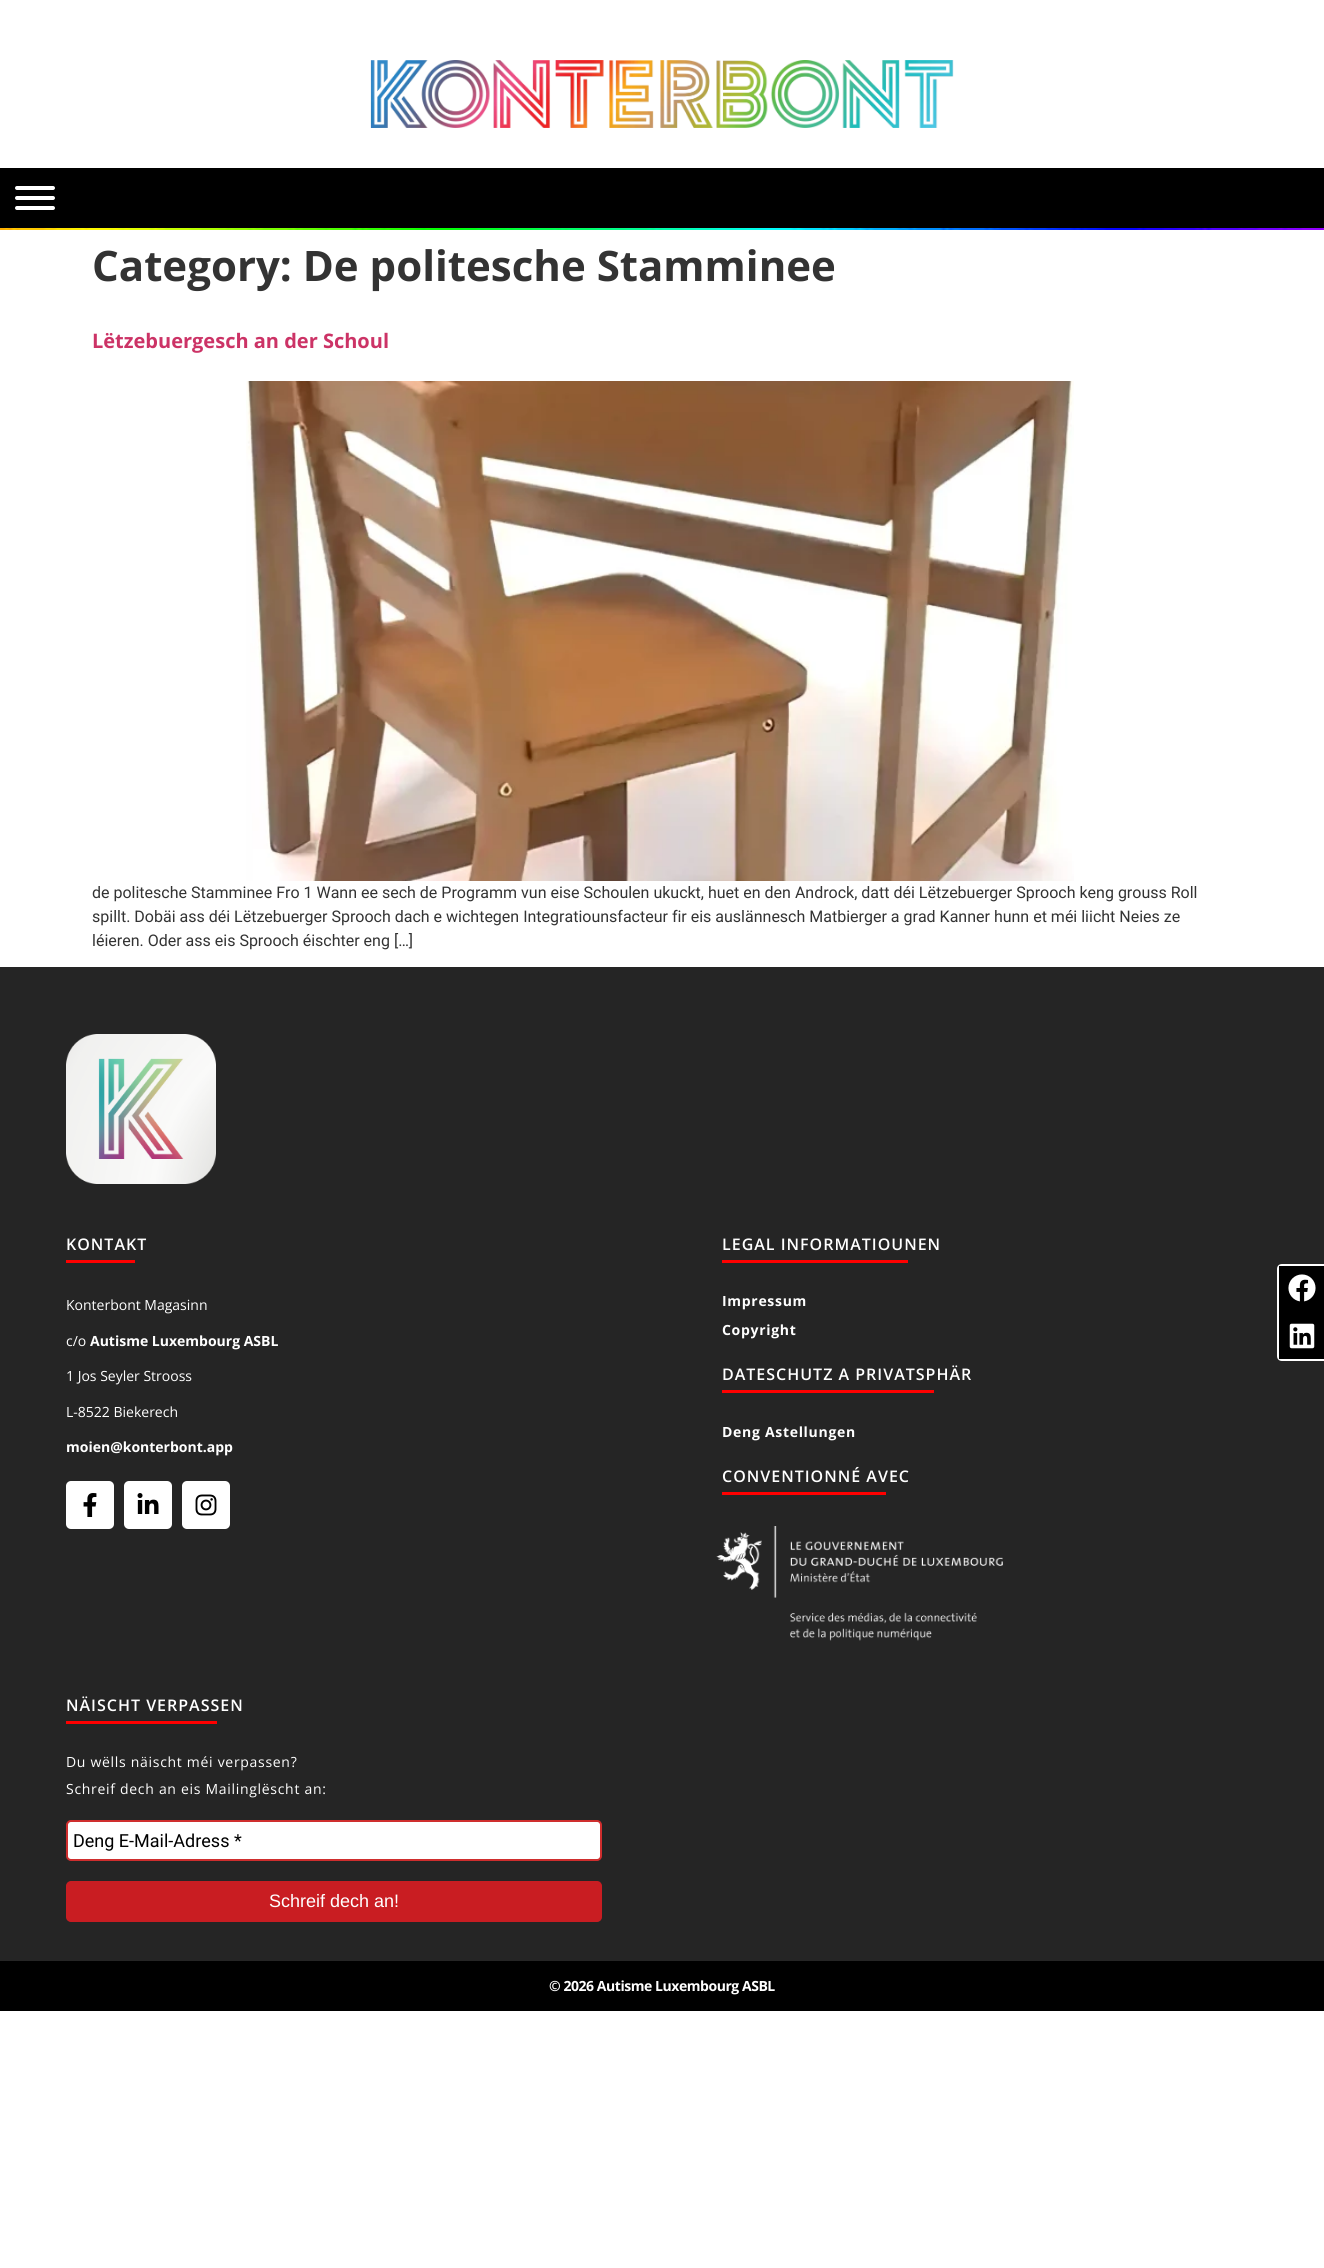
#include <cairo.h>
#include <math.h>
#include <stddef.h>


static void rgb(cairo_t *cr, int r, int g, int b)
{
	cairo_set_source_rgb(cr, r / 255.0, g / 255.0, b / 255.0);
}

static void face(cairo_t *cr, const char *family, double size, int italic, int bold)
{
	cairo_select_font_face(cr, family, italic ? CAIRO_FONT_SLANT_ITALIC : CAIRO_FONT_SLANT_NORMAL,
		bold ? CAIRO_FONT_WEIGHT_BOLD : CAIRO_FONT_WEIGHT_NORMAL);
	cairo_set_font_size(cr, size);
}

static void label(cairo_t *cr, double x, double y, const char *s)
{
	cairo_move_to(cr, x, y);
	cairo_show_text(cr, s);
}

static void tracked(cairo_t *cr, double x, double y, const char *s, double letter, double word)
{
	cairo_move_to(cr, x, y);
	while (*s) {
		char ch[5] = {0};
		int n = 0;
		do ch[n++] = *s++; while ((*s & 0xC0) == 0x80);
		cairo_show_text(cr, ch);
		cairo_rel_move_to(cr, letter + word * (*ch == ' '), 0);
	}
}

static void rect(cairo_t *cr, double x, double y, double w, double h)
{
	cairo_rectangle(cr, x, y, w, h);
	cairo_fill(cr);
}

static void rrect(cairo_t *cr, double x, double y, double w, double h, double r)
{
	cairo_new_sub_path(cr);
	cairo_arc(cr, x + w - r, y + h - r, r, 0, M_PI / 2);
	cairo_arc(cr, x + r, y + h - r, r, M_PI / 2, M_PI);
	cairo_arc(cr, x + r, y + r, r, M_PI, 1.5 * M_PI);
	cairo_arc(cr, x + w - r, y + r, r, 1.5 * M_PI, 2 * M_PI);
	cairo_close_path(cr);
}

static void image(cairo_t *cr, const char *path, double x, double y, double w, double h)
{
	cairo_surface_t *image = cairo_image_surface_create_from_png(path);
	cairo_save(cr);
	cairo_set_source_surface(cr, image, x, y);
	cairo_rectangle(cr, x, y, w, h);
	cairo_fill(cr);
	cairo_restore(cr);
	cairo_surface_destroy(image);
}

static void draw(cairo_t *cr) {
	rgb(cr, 255, 255, 255);
	cairo_paint(cr);
	image(cr, "image0.png", 370, 60, 584, 68);
	rgb(cr, 0, 0, 0);
	rect(cr, 0, 168, 1324, 60);
	rgb(cr, 255, 255, 255);
	rrect(cr, 15, 196, 40, 4, 2);
	cairo_fill(cr);
	rrect(cr, 15, 186, 40, 4, 2);
	cairo_fill(cr);
	rrect(cr, 15, 206, 40, 4, 2);
	cairo_fill(cr);
	image(cr, "image1.png", 0, 228, 1324, 2);
	face(cr, "Open Sans", 42, 0, 1);
	rgb(cr, 51, 51, 51);
	label(cr, 92, 281, "Category: De politesche Stamminee");
	face(cr, "Open Sans", 20, 0, 1);
	rgb(cr, 204, 51, 102);
	label(cr, 92, 348, "Lëtzebuergesch an der Schoul");
	image(cr, "image2.png", 246, 381, 828, 500);
	face(cr, "Roboto", 16, 0, 0);
	rgb(cr, 51, 51, 51);
	label(cr, 92, 898, "de politesche Stamminee Fro 1 Wann ee sech de Programm vun eise Schoulen ukuckt, huet en den Androck, datt déi Lëtzebuerger Sprooch keng grouss Roll");
	label(cr, 92, 922, "spillt. Dobäi ass déi Lëtzebuerger Sprooch dach e wichtegen Integratiounsfacteur fir eis auslännesch Matbierger a grad Kanner hunn et méi liicht Neies ze");
	label(cr, 92, 946, "léieren. Oder ass eis Sprooch éischter eng […]");
	rgb(cr, 37, 37, 37);
	rect(cr, 0, 967, 1324, 994);
	image(cr, "image3.png", 66, 1034, 150, 150);
	face(cr, "Open Sans SemiBold", 16, 0, 0);
	rgb(cr, 255, 255, 255);
	tracked(cr, 66, 1250, "KONTAKT", 1, 0);
	rgb(cr, 255, 0, 0);
	rect(cr, 66, 1260, 69, 3);
	face(cr, "Open Sans", 14, 0, 0);
	rgb(cr, 255, 255, 255);
	label(cr, 66, 1310, "Konterbont Magasinn");
	label(cr, 66, 1346, "c/o");
	face(cr, "Open Sans", 14, 0, 1);
	label(cr, 90, 1346, "Autisme Luxembourg ASBL");
	face(cr, "Open Sans", 14, 0, 0);
	label(cr, 66, 1381, "1 Jos Seyler Strooss");
	label(cr, 66, 1417, "L-8522 Biekerech");
	face(cr, "Open Sans", 14, 0, 1);
	label(cr, 66, 1452, "moien@konterbont.app");
	rrect(cr, 66, 1481, 48, 48, 5);
	cairo_fill(cr);
	image(cr, "image4.png", 83, 1493, 14, 24);
	rrect(cr, 124, 1481, 48, 48, 5);
	cairo_fill(cr);
	image(cr, "image5.png", 137, 1493, 22, 21);
	rrect(cr, 182, 1481, 48, 48, 5);
	cairo_fill(cr);
	image(cr, "image6.png", 195, 1494, 22, 22);
	face(cr, "Open Sans SemiBold", 16, 0, 0);
	tracked(cr, 722, 1250, "LEGAL INFORMATIOUNEN", 1, 0);
	rgb(cr, 255, 0, 0);
	rect(cr, 722, 1260, 186, 3);
	face(cr, "Open Sans", 14, 0, 1);
	rgb(cr, 255, 255, 255);
	tracked(cr, 722, 1306, "Impressum", 0.7, 0);
	tracked(cr, 722, 1335, "Copyright", 0.7, 0);
	face(cr, "Open Sans SemiBold", 16, 0, 0);
	tracked(cr, 722, 1380, "DATESCHUTZ A PRIVATSPHÄR", 1, 0);
	rgb(cr, 255, 0, 0);
	rect(cr, 722, 1390, 212, 3);
	face(cr, "Open Sans", 14, 0, 1);
	rgb(cr, 255, 255, 255);
	tracked(cr, 722, 1437, "Deng Astellungen", 0.7, 0);
	face(cr, "Open Sans SemiBold", 16, 0, 0);
	tracked(cr, 722, 1482, "CONVENTIONNÉ AVEC", 1, 0);
	rgb(cr, 255, 0, 0);
	rect(cr, 722, 1492, 164, 3);
	image(cr, "image7.png", 716, 1526, 287, 115);
	rgb(cr, 255, 255, 255);
	tracked(cr, 66, 1711, "NÄISCHT VERPASSEN", 1, 0);
	rgb(cr, 255, 0, 0);
	rect(cr, 66, 1721, 151, 3);
	face(cr, "Open Sans", 14, 0, 0);
	rgb(cr, 255, 255, 255);
	tracked(cr, 66, 1767, "Du wëlls näischt méi verpassen?", 0.7, 0);
	tracked(cr, 66, 1794, "Schreif dech an eis Mailinglëscht an:", 0.7, 0);
	rrect(cr, 67, 1821, 534, 39, 4);
	cairo_fill_preserve(cr);
	rgb(cr, 207, 46, 46);
	cairo_stroke(cr);
	face(cr, "Roboto", 18, 0, 0);
	rgb(cr, 0, 0, 0);
	label(cr, 73, 1847, "Deng E-Mail-Adress *");
	rgb(cr, 201, 29, 34);
	rrect(cr, 67, 1882, 534, 39, 4);
	cairo_fill_preserve(cr);
	cairo_stroke(cr);
	face(cr, "Liberation Sans", 18, 0, 0);
	rgb(cr, 255, 255, 255);
	label(cr, 269, 1907, "Schreif dech an!");
	rgb(cr, 0, 0, 0);
	rect(cr, 1279, 1311, 45, 3);
	rgb(cr, 255, 255, 255);
	cairo_set_fill_rule(cr, CAIRO_FILL_RULE_EVEN_ODD);
	cairo_new_path(cr);
	cairo_move_to(cr, 1282, 1264);
	cairo_line_to(cr, 1324, 1264);
	cairo_line_to(cr, 1324, 1361);
	cairo_line_to(cr, 1282, 1361);
	cairo_curve_to(cr, 1279, 1361, 1277, 1359, 1277, 1356);
	cairo_line_to(cr, 1277, 1269);
	cairo_curve_to(cr, 1277, 1266, 1279, 1264, 1282, 1264);
	cairo_close_path(cr);
	cairo_move_to(cr, 1282, 1266);
	cairo_line_to(cr, 1324, 1266);
	cairo_line_to(cr, 1324, 1359);
	cairo_line_to(cr, 1282, 1359);
	cairo_curve_to(cr, 1280, 1359, 1279, 1358, 1279, 1356);
	cairo_line_to(cr, 1279, 1269);
	cairo_curve_to(cr, 1279, 1267, 1280, 1266, 1282, 1266);
	cairo_close_path(cr);
	cairo_fill(cr);
	rgb(cr, 0, 0, 0);
	rect(cr, 1279, 1266, 45, 45);
	image(cr, "image8.png", 1288, 1274, 28, 28);
	rect(cr, 1279, 1314, 45, 45);
	image(cr, "image9.png", 1289, 1323, 26, 26);
	rect(cr, 0, 1961, 1324, 50);
	face(cr, "Open Sans", 14, 0, 1);
	rgb(cr, 255, 255, 255);
	tracked(cr, 549, 1991, "© 2026 Autisme Luxembourg ASBL", -0.45, 0);
}

int main(void) {
	cairo_surface_t *surface = cairo_image_surface_create(CAIRO_FORMAT_RGB24, 1324, 2268);
	cairo_t *cr = cairo_create(surface);
	cairo_font_options_t *options = cairo_font_options_create();
	cairo_font_options_set_hint_metrics(options, CAIRO_HINT_METRICS_OFF);
	cairo_font_options_set_hint_style(options, CAIRO_HINT_STYLE_NONE);
	cairo_set_font_options(cr, options);
	cairo_set_miter_limit(cr, 4);
	draw(cr);
	cairo_surface_write_to_png(surface, "render.png");
	cairo_font_options_destroy(options);
	cairo_destroy(cr);
	cairo_surface_destroy(surface);
	return 0;
}
